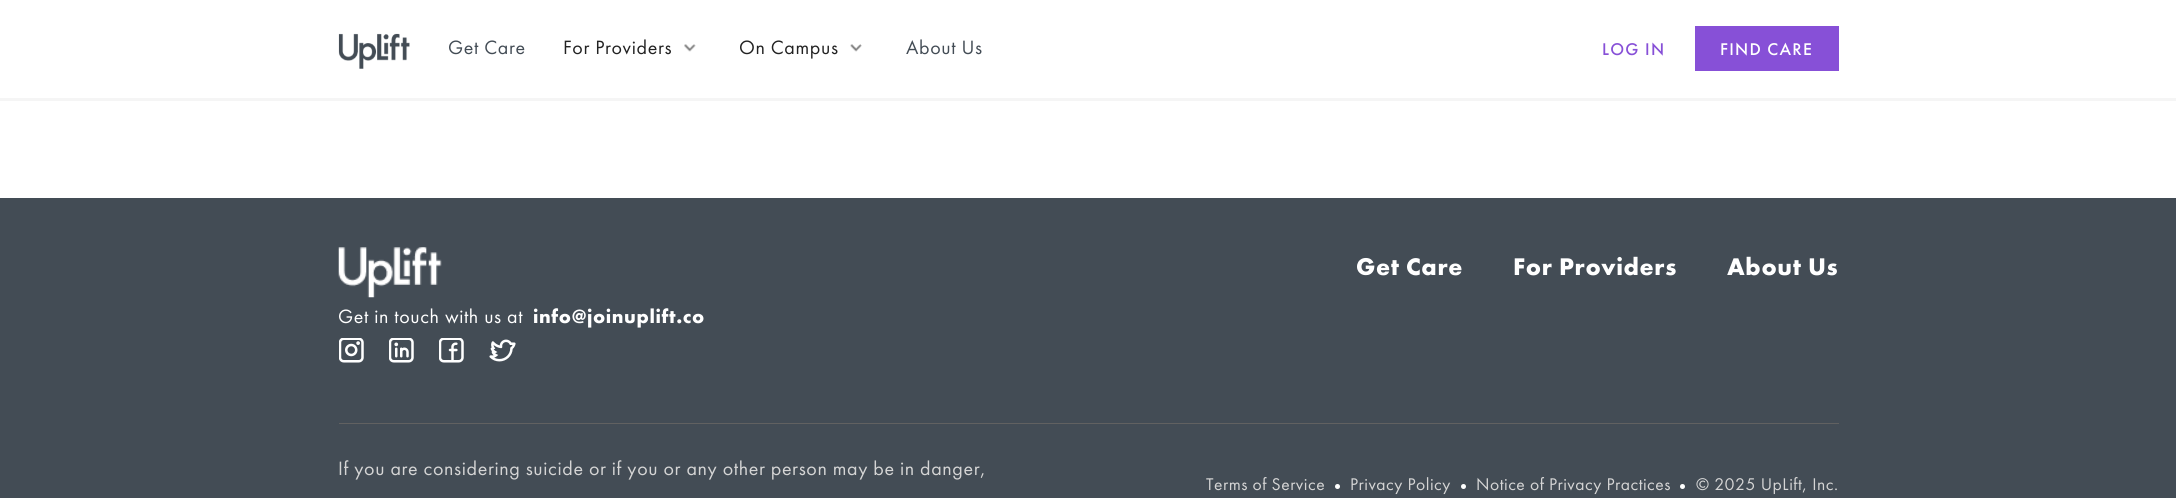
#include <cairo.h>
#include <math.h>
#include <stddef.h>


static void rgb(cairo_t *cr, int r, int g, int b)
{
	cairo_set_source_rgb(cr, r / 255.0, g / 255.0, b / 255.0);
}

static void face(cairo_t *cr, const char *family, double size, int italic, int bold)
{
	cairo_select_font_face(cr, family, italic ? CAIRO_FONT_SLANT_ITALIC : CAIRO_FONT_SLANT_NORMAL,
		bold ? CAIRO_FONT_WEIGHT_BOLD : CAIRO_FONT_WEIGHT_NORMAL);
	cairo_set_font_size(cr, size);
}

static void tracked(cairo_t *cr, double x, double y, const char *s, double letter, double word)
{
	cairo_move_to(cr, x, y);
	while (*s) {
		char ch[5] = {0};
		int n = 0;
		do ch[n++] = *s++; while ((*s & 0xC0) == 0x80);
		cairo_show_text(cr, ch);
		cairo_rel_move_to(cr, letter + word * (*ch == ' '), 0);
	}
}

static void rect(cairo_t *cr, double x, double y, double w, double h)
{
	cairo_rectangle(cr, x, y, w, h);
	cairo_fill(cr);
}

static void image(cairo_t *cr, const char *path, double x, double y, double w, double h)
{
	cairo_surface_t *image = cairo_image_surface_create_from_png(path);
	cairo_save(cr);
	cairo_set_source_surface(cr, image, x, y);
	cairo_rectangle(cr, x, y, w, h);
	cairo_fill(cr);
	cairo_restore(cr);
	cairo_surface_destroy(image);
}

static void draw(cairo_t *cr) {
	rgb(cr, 255, 255, 255);
	cairo_paint(cr);
	rgb(cr, 245, 245, 245);
	rect(cr, 0, 98, 2176, 3);
	image(cr, "image0.png", 338, 33, 72, 36);
	face(cr, "Futura PT", 20, 0, 0);
	rgb(cr, 67, 76, 85);
	tracked(cr, 448, 54, "Get Care", 0.62, 0);
	rgb(cr, 34, 34, 34);
	tracked(cr, 563, 54, "For Providers", 0.62, 0);
	image(cr, "image1.png", 684, 44, 12, 8);
	tracked(cr, 739, 54, "On Campus", 0.62, 0);
	image(cr, "image2.png", 850, 44, 12, 8);
	rgb(cr, 67, 76, 85);
	tracked(cr, 906, 54, "About Us", 0.62, 0);
	face(cr, "Futura PT Medium", 17.6, 0, 0);
	rgb(cr, 135, 80, 215);
	tracked(cr, 1602, 55, "LOG IN", 1.25, 0);
	rect(cr, 1695, 26, 144, 45);
	rgb(cr, 255, 255, 255);
	tracked(cr, 1720, 55, "FIND CARE", 1.25, 0);
	rgb(cr, 67, 76, 85);
	rect(cr, 0, 198, 2176, 300);
	face(cr, "Futura PT", 25, 0, 1);
	rgb(cr, 255, 255, 255);
	tracked(cr, 1356, 275, "Get Care", 0.62, 0);
	tracked(cr, 1513, 275, "For Providers", 0.62, 0);
	tracked(cr, 1727, 275, "About Us", 0.62, 0);
	image(cr, "image3.png", 338, 247, 104, 51);
	face(cr, "Futura PT", 20, 0, 0);
	tracked(cr, 338, 323, "Get in touch with us at", 0.62, 0);
	face(cr, "Futura PT", 20, 0, 1);
	tracked(cr, 533, 323, "info@joinuplift.co", 0.62, 0);
	image(cr, "image4.png", 339, 338, 25, 25);
	image(cr, "image5.png", 389, 338, 25, 25);
	image(cr, "image6.png", 439, 338, 25, 25);
	image(cr, "image7.png", 489, 339, 27, 23);
	rgb(cr, 97, 97, 97);
	rect(cr, 339, 423, 1500, 1);
	face(cr, "Futura PT", 20, 0, 0);
	rgb(cr, 213, 213, 213);
	tracked(cr, 338, 475, "If you are considering suicide or if you or any other person may be in danger,", 0.62, 0);
	face(cr, "Futura PT", 17.6, 0, 0);
	tracked(cr, 1206, 490, "Terms of Service", 0.5, 0);
	rgb(cr, 255, 255, 255);
	cairo_new_path(cr);
	cairo_arc(cr, 1337.5, 486.5, 2.5, 0, 2 * M_PI);
	cairo_fill(cr);
	rgb(cr, 213, 213, 213);
	tracked(cr, 1350, 490, "Privacy Policy", 0.5, 0);
	rgb(cr, 255, 255, 255);
	cairo_new_path(cr);
	cairo_arc(cr, 1463.5, 486.5, 2.5, 0, 2 * M_PI);
	cairo_fill(cr);
	rgb(cr, 213, 213, 213);
	tracked(cr, 1476, 490, "Notice of Privacy Practices", 0.5, 0);
	rgb(cr, 255, 255, 255);
	cairo_new_path(cr);
	cairo_arc(cr, 1682.5, 486.5, 2.5, 0, 2 * M_PI);
	cairo_fill(cr);
	rgb(cr, 213, 213, 213);
	tracked(cr, 1696, 490, "© 2025 UpLift, Inc.", 0.5, 0);
}

int main(void) {
	cairo_surface_t *surface = cairo_image_surface_create(CAIRO_FORMAT_RGB24, 2176, 498);
	cairo_t *cr = cairo_create(surface);
	cairo_font_options_t *options = cairo_font_options_create();
	cairo_font_options_set_hint_metrics(options, CAIRO_HINT_METRICS_OFF);
	cairo_font_options_set_hint_style(options, CAIRO_HINT_STYLE_NONE);
	cairo_set_font_options(cr, options);
	cairo_set_miter_limit(cr, 4);
	draw(cr);
	cairo_surface_write_to_png(surface, "render.png");
	cairo_font_options_destroy(options);
	cairo_destroy(cr);
	cairo_surface_destroy(surface);
	return 0;
}
